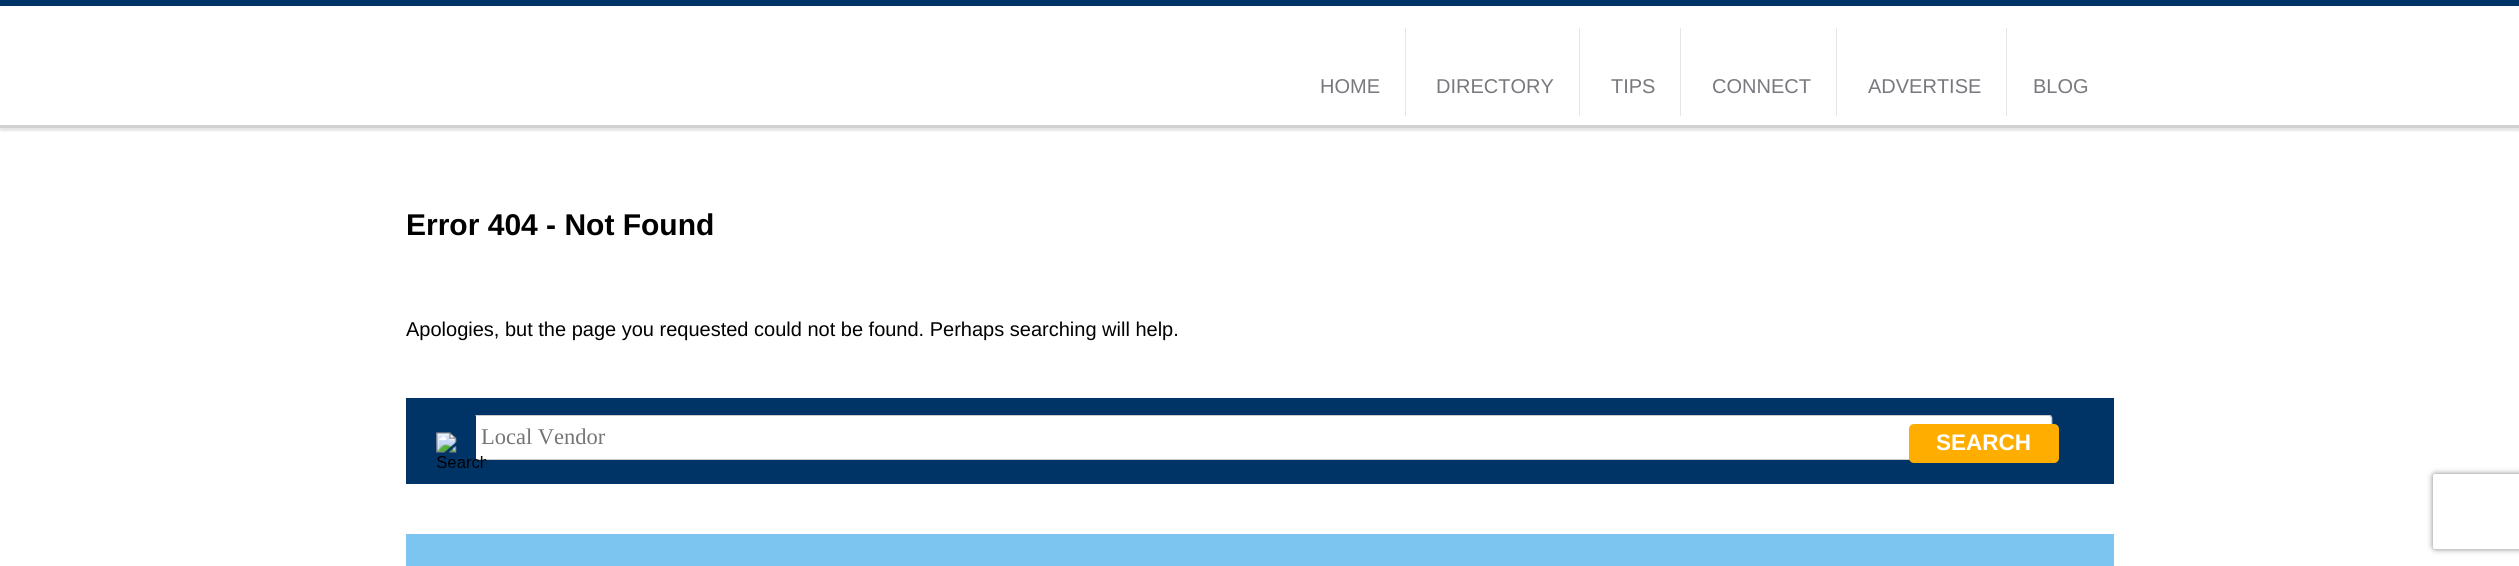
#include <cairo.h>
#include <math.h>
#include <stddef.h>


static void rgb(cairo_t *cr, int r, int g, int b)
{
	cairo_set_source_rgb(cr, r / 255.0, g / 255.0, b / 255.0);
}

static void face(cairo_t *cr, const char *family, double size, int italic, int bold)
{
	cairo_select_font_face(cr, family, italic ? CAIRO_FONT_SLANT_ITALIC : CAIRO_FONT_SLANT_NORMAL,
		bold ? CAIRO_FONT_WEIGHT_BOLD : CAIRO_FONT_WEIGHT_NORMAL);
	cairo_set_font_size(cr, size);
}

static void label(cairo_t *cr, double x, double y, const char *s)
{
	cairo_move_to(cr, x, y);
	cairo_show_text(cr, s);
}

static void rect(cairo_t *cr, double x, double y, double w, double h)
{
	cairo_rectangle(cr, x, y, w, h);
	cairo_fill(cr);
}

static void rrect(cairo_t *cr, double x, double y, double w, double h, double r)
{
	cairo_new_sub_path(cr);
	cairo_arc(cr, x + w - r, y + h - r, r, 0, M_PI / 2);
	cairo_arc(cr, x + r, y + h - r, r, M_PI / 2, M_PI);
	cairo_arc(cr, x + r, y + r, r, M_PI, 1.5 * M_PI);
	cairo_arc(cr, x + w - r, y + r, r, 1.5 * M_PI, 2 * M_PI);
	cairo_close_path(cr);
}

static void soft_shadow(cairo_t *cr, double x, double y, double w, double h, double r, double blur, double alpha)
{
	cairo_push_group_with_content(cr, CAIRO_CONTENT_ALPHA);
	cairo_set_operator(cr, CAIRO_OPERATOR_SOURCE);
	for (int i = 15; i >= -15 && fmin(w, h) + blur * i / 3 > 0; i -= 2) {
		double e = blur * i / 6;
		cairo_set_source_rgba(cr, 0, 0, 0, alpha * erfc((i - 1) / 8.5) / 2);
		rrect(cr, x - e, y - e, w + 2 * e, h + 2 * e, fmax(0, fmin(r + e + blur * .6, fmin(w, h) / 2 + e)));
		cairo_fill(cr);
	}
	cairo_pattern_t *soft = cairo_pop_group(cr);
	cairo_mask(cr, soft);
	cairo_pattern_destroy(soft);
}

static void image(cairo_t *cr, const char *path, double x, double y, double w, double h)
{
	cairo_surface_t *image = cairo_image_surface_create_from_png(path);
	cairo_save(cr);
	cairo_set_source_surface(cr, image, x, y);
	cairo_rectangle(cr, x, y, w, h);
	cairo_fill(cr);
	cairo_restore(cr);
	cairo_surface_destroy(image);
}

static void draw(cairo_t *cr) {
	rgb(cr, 255, 255, 255);
	cairo_paint(cr);
	cairo_save(cr);
	cairo_rectangle(cr, 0, 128, 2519, 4);
	cairo_clip(cr);
	rgb(cr, 0, 0, 0);
	soft_shadow(cr, 0, 4, 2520, 127, 0, 1, 0.1);
	cairo_restore(cr);
	rgb(cr, 209, 209, 209);
	rect(cr, 0, 125, 2519, 3);
	rgb(cr, 0, 51, 102);
	rect(cr, 0, 0, 2519, 6);
	face(cr, "Liberation Sans", 20, 0, 0);
	rgb(cr, 120, 120, 127);
	label(cr, 1320, 93, "HOME");
	rgb(cr, 230, 230, 230);
	rect(cr, 1405, 28, 1, 88);
	rgb(cr, 120, 120, 127);
	label(cr, 1436, 93, "DIRECTORY");
	rgb(cr, 230, 230, 230);
	rect(cr, 1579, 28, 1, 88);
	rgb(cr, 120, 120, 127);
	label(cr, 1611, 93, "TIPS");
	rgb(cr, 230, 230, 230);
	rect(cr, 1680, 28, 1, 88);
	rgb(cr, 120, 120, 127);
	label(cr, 1712, 93, "CONNECT");
	rgb(cr, 230, 230, 230);
	rect(cr, 1836, 28, 1, 88);
	rgb(cr, 120, 120, 127);
	label(cr, 1868, 93, "ADVERTISE");
	rgb(cr, 230, 230, 230);
	rect(cr, 2006, 28, 1, 88);
	rgb(cr, 120, 120, 127);
	label(cr, 2033, 93, "BLOG");
	face(cr, "Liberation Sans", 30, 0, 1);
	rgb(cr, 0, 0, 0);
	label(cr, 406, 235, "Error 404 - Not Found");
	face(cr, "Liberation Sans", 20, 0, 0);
	label(cr, 406, 336, "Apologies, but the page you requested could not be found. Perhaps searching will help.");
	rgb(cr, 0, 51, 102);
	rect(cr, 406, 398, 1708, 86);
	rgb(cr, 255, 255, 255);
	cairo_new_path(cr);
	cairo_move_to(cr, 476, 416);
	cairo_line_to(cr, 2050, 416);
	cairo_curve_to(cr, 2051, 416, 2051, 417, 2051, 418);
	cairo_line_to(cr, 2051, 458);
	cairo_curve_to(cr, 2051, 458, 2051, 459, 2050, 459);
	cairo_line_to(cr, 476, 459);
	cairo_close_path(cr);
	cairo_fill(cr);
	rgb(cr, 204, 204, 204);
	cairo_new_path(cr);
	cairo_move_to(cr, 476, 415);
	cairo_line_to(cr, 475, 416);
	cairo_line_to(cr, 476, 416);
	cairo_line_to(cr, 2050, 416);
	cairo_line_to(cr, 2051, 417);
	cairo_line_to(cr, 2052, 416);
	cairo_line_to(cr, 2050, 415);
	cairo_close_path(cr);
	cairo_fill(cr);
	cairo_new_path(cr);
	cairo_move_to(cr, 2052, 416);
	cairo_curve_to(cr, 2053, 418, 2052, 458, 2052, 459);
	cairo_line_to(cr, 2051, 458);
	cairo_line_to(cr, 2051, 417);
	cairo_close_path(cr);
	cairo_fill(cr);
	cairo_new_path(cr);
	cairo_move_to(cr, 476, 460);
	cairo_line_to(cr, 2050, 460);
	cairo_line_to(cr, 2052, 459);
	cairo_line_to(cr, 2051, 458);
	cairo_line_to(cr, 2050, 459);
	cairo_line_to(cr, 476, 459);
	cairo_line_to(cr, 475, 459);
	cairo_close_path(cr);
	cairo_fill(cr);
	face(cr, "Liberation Serif", 22.5, 0, 0);
	rgb(cr, 117, 117, 117);
	label(cr, 481, 444, "Local Vendor");
	image(cr, "image0.png", 436, 432, 51, 36);
	rgb(cr, 255, 174, 0);
	rrect(cr, 1909, 424, 150, 39, 5);
	cairo_fill(cr);
	face(cr, "Liberation Sans", 22.5, 0, 1);
	rgb(cr, 255, 255, 255);
	label(cr, 1936, 450, "SEARCH");
	rgb(cr, 125, 197, 241);
	rect(cr, 406, 534, 1708, 32);
	cairo_save(cr);
	cairo_set_fill_rule(cr, CAIRO_FILL_RULE_EVEN_ODD);
	cairo_new_path(cr);
	cairo_move_to(cr, 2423, 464);
	cairo_line_to(cr, 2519, 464);
	cairo_line_to(cr, 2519, 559);
	cairo_line_to(cr, 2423, 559);
	cairo_close_path(cr);
	cairo_move_to(cr, 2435.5, 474);
	cairo_line_to(cr, 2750.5, 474);
	cairo_curve_to(cr, 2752, 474, 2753, 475, 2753, 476.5);
	cairo_line_to(cr, 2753, 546.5);
	cairo_curve_to(cr, 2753, 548, 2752, 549, 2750.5, 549);
	cairo_line_to(cr, 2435.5, 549);
	cairo_curve_to(cr, 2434, 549, 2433, 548, 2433, 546.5);
	cairo_line_to(cr, 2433, 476.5);
	cairo_curve_to(cr, 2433, 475, 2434, 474, 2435.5, 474);
	cairo_close_path(cr);
	cairo_clip(cr);
	rgb(cr, 128, 128, 128);
	soft_shadow(cr, 2433, 474, 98, 75, 2.5, 3, 1);
	cairo_restore(cr);
}

int main(void) {
	cairo_surface_t *surface = cairo_image_surface_create(CAIRO_FORMAT_RGB24, 2519, 566);
	cairo_t *cr = cairo_create(surface);
	cairo_font_options_t *options = cairo_font_options_create();
	cairo_font_options_set_hint_metrics(options, CAIRO_HINT_METRICS_OFF);
	cairo_font_options_set_hint_style(options, CAIRO_HINT_STYLE_NONE);
	cairo_set_font_options(cr, options);
	cairo_set_miter_limit(cr, 4);
	draw(cr);
	cairo_surface_write_to_png(surface, "render.png");
	cairo_font_options_destroy(options);
	cairo_destroy(cr);
	cairo_surface_destroy(surface);
	return 0;
}
